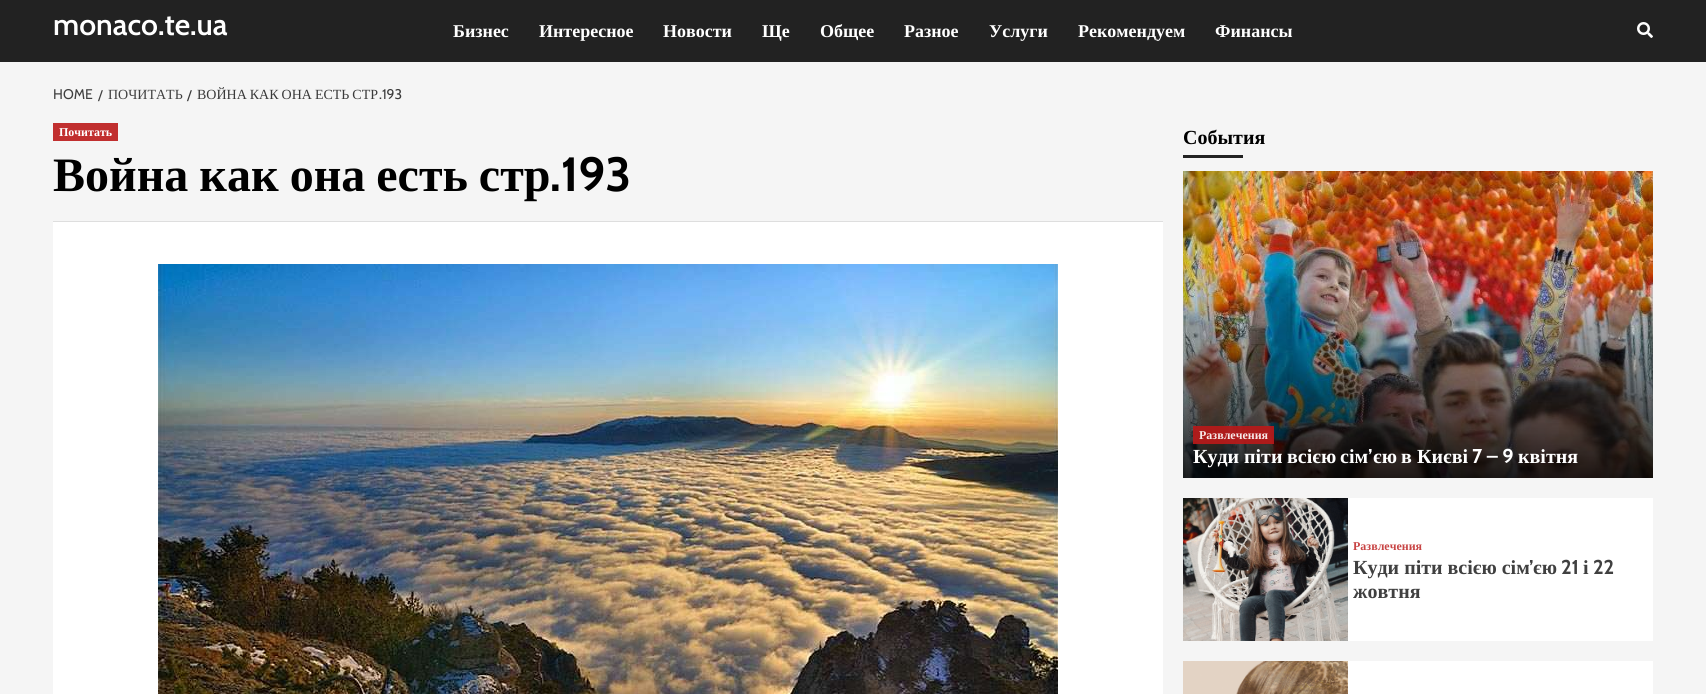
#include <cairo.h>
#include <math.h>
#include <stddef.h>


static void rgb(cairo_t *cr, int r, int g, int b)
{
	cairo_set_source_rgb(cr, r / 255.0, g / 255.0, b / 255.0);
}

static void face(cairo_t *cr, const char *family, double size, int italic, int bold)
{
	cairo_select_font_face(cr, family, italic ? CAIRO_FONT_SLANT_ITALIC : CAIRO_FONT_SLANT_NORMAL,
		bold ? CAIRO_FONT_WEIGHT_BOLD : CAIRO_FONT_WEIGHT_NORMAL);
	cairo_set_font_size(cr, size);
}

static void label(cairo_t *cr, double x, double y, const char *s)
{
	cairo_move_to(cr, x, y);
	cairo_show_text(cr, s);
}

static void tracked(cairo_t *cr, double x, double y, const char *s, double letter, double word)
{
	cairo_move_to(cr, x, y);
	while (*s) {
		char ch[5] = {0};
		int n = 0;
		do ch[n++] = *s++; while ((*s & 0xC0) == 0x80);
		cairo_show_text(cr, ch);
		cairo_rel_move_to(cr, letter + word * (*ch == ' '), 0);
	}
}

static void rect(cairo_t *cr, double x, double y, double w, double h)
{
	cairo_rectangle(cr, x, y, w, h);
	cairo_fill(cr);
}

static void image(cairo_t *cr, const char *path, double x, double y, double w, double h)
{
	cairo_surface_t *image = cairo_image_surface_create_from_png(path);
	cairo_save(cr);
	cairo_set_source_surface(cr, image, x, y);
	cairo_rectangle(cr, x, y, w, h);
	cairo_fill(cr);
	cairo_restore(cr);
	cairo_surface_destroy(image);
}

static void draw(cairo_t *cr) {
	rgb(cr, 245, 245, 245);
	cairo_paint(cr);
	rgb(cr, 34, 34, 34);
	rect(cr, 0, 0, 1706, 62);
	face(cr, "Cabin SemiBold", 30, 0, 0);
	rgb(cr, 255, 255, 255);
	label(cr, 53, 35, "monaco.te.ua");
	face(cr, "Liberation Serif", 18, 0, 1);
	label(cr, 453, 37, "Бизнес");
	label(cr, 539, 37, "Интересное");
	label(cr, 663, 37, "Новости");
	label(cr, 762, 37, "Ще");
	label(cr, 820, 37, "Общее");
	label(cr, 904, 37, "Разное");
	label(cr, 989, 37, "Услуги");
	label(cr, 1078, 37, "Рекомендуем");
	label(cr, 1215, 37, "Финансы");
	image(cr, "image0.png", 1637, 22, 16, 16);
	face(cr, "Cabin", 14, 0, 0);
	rgb(cr, 64, 64, 64);
	label(cr, 53, 99, "HOME");
	label(cr, 98, 100, "/");
	face(cr, "Liberation Serif", 14, 0, 0);
	label(cr, 108, 99, "ПОЧИТАТЬ");
	face(cr, "Cabin", 14, 0, 0);
	rgb(cr, 58, 58, 58);
	label(cr, 187, 100, "/");
	face(cr, "Liberation Serif", 14, 0, 0);
	tracked(cr, 197, 99, "ВОЙНА КАК ОНА ЕСТЬ СТР", 0, -0.5);
	face(cr, "Cabin", 14, 0, 0);
	label(cr, 379, 99, ".193");
	rgb(cr, 255, 255, 255);
	rect(cr, 53, 222, 1110, 472);
	rgb(cr, 222, 222, 222);
	rect(cr, 53, 221, 1110, 1);
	rgb(cr, 193, 47, 47);
	rect(cr, 53, 123, 65, 18);
	face(cr, "Liberation Serif", 12, 0, 1);
	rgb(cr, 255, 255, 255);
	label(cr, 59, 136, "Почитать");
	face(cr, "Liberation Serif", 48, 0, 1);
	rgb(cr, 0, 0, 0);
	tracked(cr, 53, 191, "Война как она есть стр", 0, -1);
	face(cr, "Cabin", 48, 0, 1);
	label(cr, 550, 191, ".193");
	image(cr, "image1.png", 158, 264, 900, 430);
	face(cr, "Liberation Serif", 20, 0, 1);
	label(cr, 1183, 144, "События");
	rgb(cr, 34, 34, 34);
	rect(cr, 1183, 155, 60, 3);
	image(cr, "image2.png", 1183, 171, 470, 307);
	cairo_set_source_rgba(cr, 0.733, 0.098, 0.098, 0.9);
	rect(cr, 1193, 426, 81, 18);
	face(cr, "Liberation Serif", 12, 0, 1);
	rgb(cr, 247, 232, 232);
	label(cr, 1199, 439, "Развлечения");
	face(cr, "Liberation Serif", 20, 0, 1);
	rgb(cr, 255, 255, 255);
	label(cr, 1193, 463, "Куди");
	label(cr, 1244, 463, "піти");
	label(cr, 1287, 463, "всією");
	label(cr, 1340, 463, "сім");
	face(cr, "Cabin", 20, 0, 1);
	label(cr, 1368, 463, "’");
	face(cr, "Liberation Serif", 20, 0, 1);
	label(cr, 1373, 463, "єю");
	label(cr, 1401, 463, "в");
	label(cr, 1417, 463, "Києві");
	face(cr, "Cabin", 20, 0, 1);
	label(cr, 1472, 463, "7 – 9");
	face(cr, "Liberation Serif", 20, 0, 1);
	label(cr, 1518, 463, "квітня");
	rect(cr, 1348, 498, 305, 143);
	image(cr, "image3.png", 1183, 498, 165, 143);
	face(cr, "Liberation Serif", 12, 0, 1);
	rgb(cr, 200, 69, 69);
	label(cr, 1353, 550, "Развлечения");
	face(cr, "Liberation Serif", 20, 0, 1);
	rgb(cr, 64, 64, 64);
	label(cr, 1353, 574, "Куди піти всією сім");
	face(cr, "Cabin", 20, 0, 1);
	label(cr, 1529, 574, "’");
	face(cr, "Liberation Serif", 20, 0, 1);
	label(cr, 1533, 574, "єю");
	face(cr, "Cabin", 20, 0, 1);
	label(cr, 1561, 574, "21");
	face(cr, "Liberation Serif", 20, 0, 1);
	label(cr, 1583, 574, "і");
	face(cr, "Cabin", 20, 0, 1);
	label(cr, 1593, 574, "22");
	face(cr, "Liberation Serif", 20, 0, 1);
	label(cr, 1353, 598, "жовтня");
	rgb(cr, 255, 255, 255);
	rect(cr, 1348, 661, 305, 33);
	image(cr, "image4.png", 1183, 661, 165, 33);
}

int main(void) {
	cairo_surface_t *surface = cairo_image_surface_create(CAIRO_FORMAT_RGB24, 1706, 694);
	cairo_t *cr = cairo_create(surface);
	cairo_font_options_t *options = cairo_font_options_create();
	cairo_font_options_set_hint_metrics(options, CAIRO_HINT_METRICS_OFF);
	cairo_font_options_set_hint_style(options, CAIRO_HINT_STYLE_NONE);
	cairo_set_font_options(cr, options);
	cairo_set_miter_limit(cr, 4);
	draw(cr);
	cairo_surface_write_to_png(surface, "render.png");
	cairo_font_options_destroy(options);
	cairo_destroy(cr);
	cairo_surface_destroy(surface);
	return 0;
}
